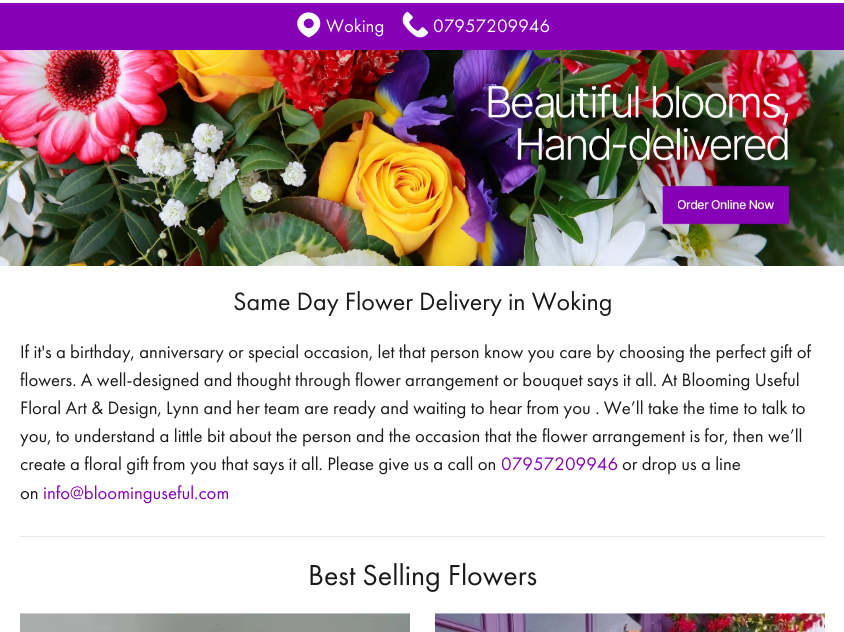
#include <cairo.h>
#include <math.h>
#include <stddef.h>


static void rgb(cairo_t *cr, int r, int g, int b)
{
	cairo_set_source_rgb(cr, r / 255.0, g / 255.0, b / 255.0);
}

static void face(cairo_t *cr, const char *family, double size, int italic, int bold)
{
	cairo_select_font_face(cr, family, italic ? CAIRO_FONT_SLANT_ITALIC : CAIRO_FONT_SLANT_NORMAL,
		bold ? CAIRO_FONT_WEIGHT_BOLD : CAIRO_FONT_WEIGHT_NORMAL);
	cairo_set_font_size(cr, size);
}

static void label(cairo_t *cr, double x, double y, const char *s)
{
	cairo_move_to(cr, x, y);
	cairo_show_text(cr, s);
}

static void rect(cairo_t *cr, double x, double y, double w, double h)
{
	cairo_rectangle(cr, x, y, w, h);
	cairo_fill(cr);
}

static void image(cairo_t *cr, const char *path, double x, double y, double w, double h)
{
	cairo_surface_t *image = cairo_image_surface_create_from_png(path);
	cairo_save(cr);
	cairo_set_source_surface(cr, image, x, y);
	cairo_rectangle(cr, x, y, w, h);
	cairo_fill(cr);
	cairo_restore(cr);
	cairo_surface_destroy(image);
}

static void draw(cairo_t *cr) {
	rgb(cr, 255, 255, 255);
	cairo_paint(cr);
	rgb(cr, 134, 0, 183);
	rect(cr, 0, 3, 844, 47);
	image(cr, "image0.png", 297, 12, 24, 26);
	face(cr, "Futura PT", 18.75, 0, 0);
	rgb(cr, 255, 255, 255);
	label(cr, 326, 32, "Woking");
	image(cr, "image1.png", 402, 11, 27, 27);
	label(cr, 433, 32, "07957209946");
	image(cr, "image2.png", 0, 50, 844, 216);
	face(cr, "Futura PT", 26, 0, 0);
	rgb(cr, 26, 26, 26);
	label(cr, 233, 310, "Same Day Flower Delivery in Woking");
	face(cr, "Futura PT", 18.75, 0, 0);
	label(cr, 20, 358, "If it's a birthday, anniversary or special occasion, let that person know you care by choosing the perfect gift of");
	label(cr, 20, 386, "flowers. A well-designed and thought through flower arrangement or bouquet says it all. At Blooming Useful");
	label(cr, 20, 414, "Floral Art & Design, Lynn and her team are ready and waiting to hear from you . We’ll take the time to talk to");
	label(cr, 20, 442, "you, to understand a little bit about the person and the occasion that the flower arrangement is for, then we’ll");
	label(cr, 20, 470, "create a floral gift from you that says it all. Please give us a call on");
	rgb(cr, 134, 0, 183);
	label(cr, 501, 470, "07957209946");
	rgb(cr, 26, 26, 26);
	label(cr, 622, 470, "or drop us a line");
	label(cr, 20, 499, "on");
	rgb(cr, 134, 0, 183);
	label(cr, 43, 499, "info@bloominguseful.com");
	rgb(cr, 230, 230, 230);
	rect(cr, 20, 536, 805, 1);
	face(cr, "Futura PT", 30, 0, 0);
	rgb(cr, 26, 26, 26);
	label(cr, 308, 585, "Best Selling Flowers");
	image(cr, "image3.png", 20, 613, 390, 19);
	image(cr, "image4.png", 435, 613, 390, 19);
}

int main(void) {
	cairo_surface_t *surface = cairo_image_surface_create(CAIRO_FORMAT_RGB24, 844, 632);
	cairo_t *cr = cairo_create(surface);
	cairo_font_options_t *options = cairo_font_options_create();
	cairo_font_options_set_hint_metrics(options, CAIRO_HINT_METRICS_OFF);
	cairo_font_options_set_hint_style(options, CAIRO_HINT_STYLE_NONE);
	cairo_set_font_options(cr, options);
	cairo_set_miter_limit(cr, 4);
	draw(cr);
	cairo_surface_write_to_png(surface, "render.png");
	cairo_font_options_destroy(options);
	cairo_destroy(cr);
	cairo_surface_destroy(surface);
	return 0;
}
